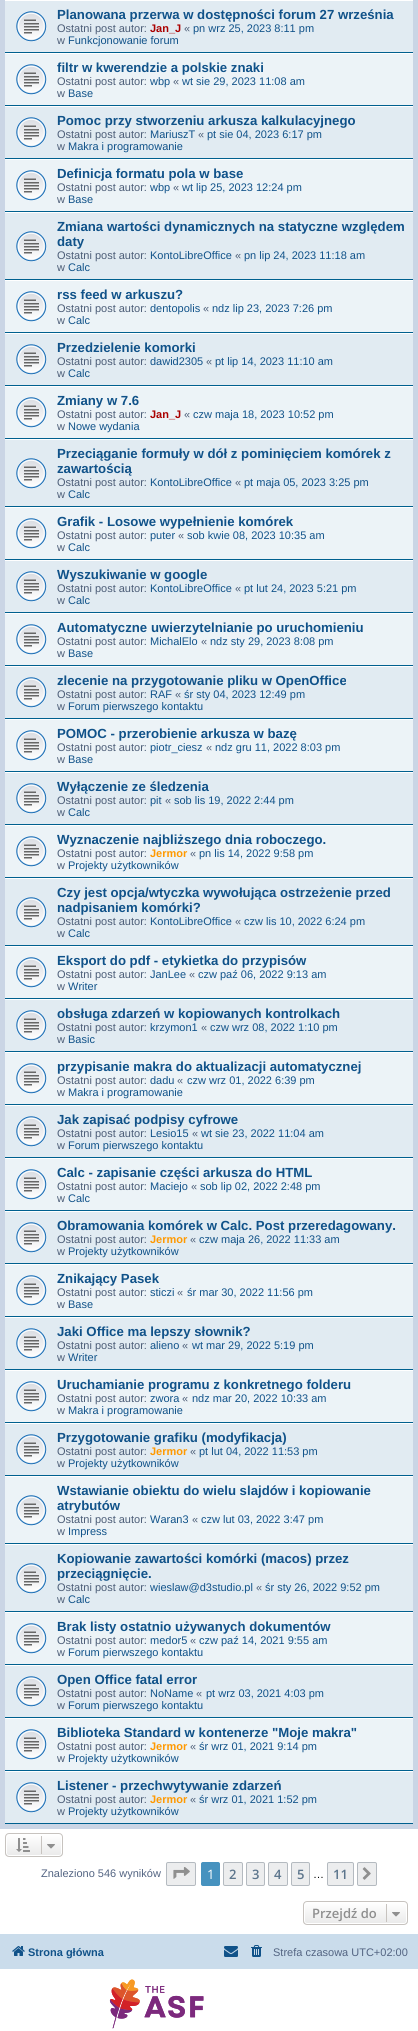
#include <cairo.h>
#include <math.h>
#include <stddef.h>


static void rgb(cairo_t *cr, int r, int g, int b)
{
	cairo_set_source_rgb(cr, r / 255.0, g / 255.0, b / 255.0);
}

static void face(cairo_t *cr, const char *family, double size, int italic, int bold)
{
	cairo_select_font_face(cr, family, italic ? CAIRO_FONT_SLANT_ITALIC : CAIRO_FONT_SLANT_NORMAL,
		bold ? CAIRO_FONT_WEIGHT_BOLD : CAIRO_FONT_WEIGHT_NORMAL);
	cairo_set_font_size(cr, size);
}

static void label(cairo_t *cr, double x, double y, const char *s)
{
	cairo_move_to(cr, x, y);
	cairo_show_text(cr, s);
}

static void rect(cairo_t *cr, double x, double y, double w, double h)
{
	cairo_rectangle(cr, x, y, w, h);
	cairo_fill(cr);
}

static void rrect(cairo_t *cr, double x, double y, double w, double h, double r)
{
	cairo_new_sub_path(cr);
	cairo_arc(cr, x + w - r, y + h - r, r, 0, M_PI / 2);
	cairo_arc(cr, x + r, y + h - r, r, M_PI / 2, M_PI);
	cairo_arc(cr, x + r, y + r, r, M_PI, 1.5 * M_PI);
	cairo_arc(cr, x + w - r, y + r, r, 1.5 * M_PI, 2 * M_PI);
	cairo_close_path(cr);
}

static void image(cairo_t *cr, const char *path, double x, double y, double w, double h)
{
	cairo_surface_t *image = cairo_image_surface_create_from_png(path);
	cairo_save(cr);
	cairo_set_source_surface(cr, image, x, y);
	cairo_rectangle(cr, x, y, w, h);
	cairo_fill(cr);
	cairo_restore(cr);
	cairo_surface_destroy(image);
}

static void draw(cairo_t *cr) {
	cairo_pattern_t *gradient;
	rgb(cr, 255, 255, 255);
	cairo_paint(cr);
	rgb(cr, 202, 213, 229);
	rect(cr, 0, 0, 418, 1829);
	rgb(cr, 225, 235, 242);
	rect(cr, 5, 1, 408, 51);
	rgb(cr, 255, 255, 255);
	rect(cr, 5, 0, 408, 1);
	rgb(cr, 0, 96, 143);
	rect(cr, 5, 52, 408, 1);
	image(cr, "image0.png", 16, 11, 31, 31);
	face(cr, "Liberation Sans", 13.2, 0, 1);
	rgb(cr, 16, 82, 137);
	label(cr, 57, 19, "Planowana przerwa w dostępności forum 27 września");
	face(cr, "Liberation Sans", 11, 0, 0);
	rgb(cr, 76, 93, 119);
	label(cr, 57, 32, "Ostatni post autor:");
	face(cr, "Liberation Sans", 11, 0, 1);
	rgb(cr, 170, 0, 0);
	label(cr, 150, 32, "Jan_J");
	face(cr, "Liberation Sans", 11, 0, 0);
	rgb(cr, 76, 93, 119);
	label(cr, 184, 32, "«");
	rgb(cr, 16, 82, 137);
	label(cr, 193, 32, "pn wrz 25, 2023 8:11 pm");
	rgb(cr, 76, 93, 119);
	label(cr, 57, 44, "w");
	rgb(cr, 16, 82, 137);
	label(cr, 68, 44, "Funkcjonowanie forum");
	rgb(cr, 236, 243, 247);
	rect(cr, 5, 54, 408, 51);
	rgb(cr, 255, 255, 255);
	rect(cr, 5, 53, 408, 1);
	rgb(cr, 0, 96, 143);
	rect(cr, 5, 105, 408, 1);
	image(cr, "image1.png", 16, 64, 31, 31);
	face(cr, "Liberation Sans", 13.2, 0, 1);
	rgb(cr, 16, 82, 137);
	label(cr, 57, 72, "filtr w kwerendzie a polskie znaki");
	face(cr, "Liberation Sans", 11, 0, 0);
	rgb(cr, 76, 93, 119);
	label(cr, 57, 85, "Ostatni post autor:");
	rgb(cr, 16, 82, 137);
	label(cr, 150, 85, "wbp");
	rgb(cr, 76, 93, 119);
	label(cr, 173, 85, "«");
	rgb(cr, 16, 82, 137);
	label(cr, 182, 85, "wt sie 29, 2023 11:08 am");
	rgb(cr, 76, 93, 119);
	label(cr, 57, 97, "w");
	rgb(cr, 16, 82, 137);
	label(cr, 68, 97, "Base");
	rgb(cr, 225, 235, 242);
	rect(cr, 5, 107, 408, 51);
	rgb(cr, 255, 255, 255);
	rect(cr, 5, 106, 408, 1);
	rgb(cr, 0, 96, 143);
	rect(cr, 5, 158, 408, 1);
	image(cr, "image0.png", 16, 117, 31, 31);
	face(cr, "Liberation Sans", 13.2, 0, 1);
	rgb(cr, 16, 82, 137);
	label(cr, 57, 125, "Pomoc przy stworzeniu arkusza kalkulacyjnego");
	face(cr, "Liberation Sans", 11, 0, 0);
	rgb(cr, 76, 93, 119);
	label(cr, 57, 138, "Ostatni post autor:");
	rgb(cr, 16, 82, 137);
	label(cr, 150, 138, "MariuszT");
	rgb(cr, 76, 93, 119);
	label(cr, 198, 138, "«");
	rgb(cr, 16, 82, 137);
	label(cr, 207, 138, "pt sie 04, 2023 6:17 pm");
	rgb(cr, 76, 93, 119);
	label(cr, 57, 150, "w");
	rgb(cr, 16, 82, 137);
	label(cr, 68, 150, "Makra i programowanie");
	rgb(cr, 236, 243, 247);
	rect(cr, 5, 160, 408, 51);
	rgb(cr, 255, 255, 255);
	rect(cr, 5, 159, 408, 1);
	rgb(cr, 0, 96, 143);
	rect(cr, 5, 211, 408, 1);
	image(cr, "image1.png", 16, 170, 31, 31);
	face(cr, "Liberation Sans", 13.2, 0, 1);
	rgb(cr, 16, 82, 137);
	label(cr, 57, 178, "Definicja formatu pola w base");
	face(cr, "Liberation Sans", 11, 0, 0);
	rgb(cr, 76, 93, 119);
	label(cr, 57, 191, "Ostatni post autor:");
	rgb(cr, 16, 82, 137);
	label(cr, 150, 191, "wbp");
	rgb(cr, 76, 93, 119);
	label(cr, 173, 191, "«");
	rgb(cr, 16, 82, 137);
	label(cr, 182, 191, "wt lip 25, 2023 12:24 pm");
	rgb(cr, 76, 93, 119);
	label(cr, 57, 203, "w");
	rgb(cr, 16, 82, 137);
	label(cr, 68, 203, "Base");
	rgb(cr, 225, 235, 242);
	rect(cr, 5, 213, 408, 66);
	rgb(cr, 255, 255, 255);
	rect(cr, 5, 212, 408, 1);
	rgb(cr, 0, 96, 143);
	rect(cr, 5, 279, 408, 1);
	image(cr, "image0.png", 16, 231, 31, 31);
	face(cr, "Liberation Sans", 13.2, 0, 1);
	rgb(cr, 16, 82, 137);
	label(cr, 57, 231, "Zmiana wartości dynamicznych na statyczne względem");
	label(cr, 57, 246, "daty");
	face(cr, "Liberation Sans", 11, 0, 0);
	rgb(cr, 76, 93, 119);
	label(cr, 57, 259, "Ostatni post autor:");
	rgb(cr, 16, 82, 137);
	label(cr, 150, 259, "KontoLibreOffice");
	rgb(cr, 76, 93, 119);
	label(cr, 235, 259, "«");
	rgb(cr, 16, 82, 137);
	label(cr, 244, 259, "pn lip 24, 2023 11:18 am");
	rgb(cr, 76, 93, 119);
	label(cr, 57, 271, "w");
	rgb(cr, 16, 82, 137);
	label(cr, 68, 271, "Calc");
	rgb(cr, 236, 243, 247);
	rect(cr, 5, 281, 408, 51);
	rgb(cr, 255, 255, 255);
	rect(cr, 5, 280, 408, 1);
	rgb(cr, 0, 96, 143);
	rect(cr, 5, 332, 408, 1);
	image(cr, "image1.png", 16, 291, 31, 31);
	face(cr, "Liberation Sans", 13.2, 0, 1);
	rgb(cr, 16, 82, 137);
	label(cr, 57, 299, "rss feed w arkuszu?");
	face(cr, "Liberation Sans", 11, 0, 0);
	rgb(cr, 76, 93, 119);
	label(cr, 57, 312, "Ostatni post autor:");
	rgb(cr, 16, 82, 137);
	label(cr, 150, 312, "dentopolis");
	rgb(cr, 76, 93, 119);
	label(cr, 203, 312, "«");
	rgb(cr, 16, 82, 137);
	label(cr, 212, 312, "ndz lip 23, 2023 7:26 pm");
	rgb(cr, 76, 93, 119);
	label(cr, 57, 324, "w");
	rgb(cr, 16, 82, 137);
	label(cr, 68, 324, "Calc");
	rgb(cr, 225, 235, 242);
	rect(cr, 5, 334, 408, 51);
	rgb(cr, 255, 255, 255);
	rect(cr, 5, 333, 408, 1);
	rgb(cr, 0, 96, 143);
	rect(cr, 5, 385, 408, 1);
	image(cr, "image0.png", 16, 344, 31, 31);
	face(cr, "Liberation Sans", 13.2, 0, 1);
	rgb(cr, 16, 82, 137);
	label(cr, 57, 352, "Przedzielenie komorki");
	face(cr, "Liberation Sans", 11, 0, 0);
	rgb(cr, 76, 93, 119);
	label(cr, 57, 365, "Ostatni post autor:");
	rgb(cr, 16, 82, 137);
	label(cr, 150, 365, "dawid2305");
	rgb(cr, 76, 93, 119);
	label(cr, 206, 365, "«");
	rgb(cr, 16, 82, 137);
	label(cr, 215, 365, "pt lip 14, 2023 11:10 am");
	rgb(cr, 76, 93, 119);
	label(cr, 57, 377, "w");
	rgb(cr, 16, 82, 137);
	label(cr, 68, 377, "Calc");
	rgb(cr, 236, 243, 247);
	rect(cr, 5, 387, 408, 51);
	rgb(cr, 255, 255, 255);
	rect(cr, 5, 386, 408, 1);
	rgb(cr, 0, 96, 143);
	rect(cr, 5, 438, 408, 1);
	image(cr, "image1.png", 16, 397, 31, 31);
	face(cr, "Liberation Sans", 13.2, 0, 1);
	rgb(cr, 16, 82, 137);
	label(cr, 57, 405, "Zmiany w 7.6");
	face(cr, "Liberation Sans", 11, 0, 0);
	rgb(cr, 76, 93, 119);
	label(cr, 57, 418, "Ostatni post autor:");
	face(cr, "Liberation Sans", 11, 0, 1);
	rgb(cr, 170, 0, 0);
	label(cr, 150, 418, "Jan_J");
	face(cr, "Liberation Sans", 11, 0, 0);
	rgb(cr, 76, 93, 119);
	label(cr, 184, 418, "«");
	rgb(cr, 16, 82, 137);
	label(cr, 193, 418, "czw maja 18, 2023 10:52 pm");
	rgb(cr, 76, 93, 119);
	label(cr, 57, 430, "w");
	rgb(cr, 16, 82, 137);
	label(cr, 68, 430, "Nowe wydania");
	rgb(cr, 225, 235, 242);
	rect(cr, 5, 440, 408, 66);
	rgb(cr, 255, 255, 255);
	rect(cr, 5, 439, 408, 1);
	rgb(cr, 0, 96, 143);
	rect(cr, 5, 506, 408, 1);
	image(cr, "image0.png", 16, 458, 31, 31);
	face(cr, "Liberation Sans", 13.2, 0, 1);
	rgb(cr, 16, 82, 137);
	label(cr, 57, 458, "Przeciąganie formuły w dół z pominięciem komórek z");
	label(cr, 57, 473, "zawartością");
	face(cr, "Liberation Sans", 11, 0, 0);
	rgb(cr, 76, 93, 119);
	label(cr, 57, 486, "Ostatni post autor:");
	rgb(cr, 16, 82, 137);
	label(cr, 150, 486, "KontoLibreOffice");
	rgb(cr, 76, 93, 119);
	label(cr, 235, 486, "«");
	rgb(cr, 16, 82, 137);
	label(cr, 244, 486, "pt maja 05, 2023 3:25 pm");
	rgb(cr, 76, 93, 119);
	label(cr, 57, 498, "w");
	rgb(cr, 16, 82, 137);
	label(cr, 68, 498, "Calc");
	rgb(cr, 236, 243, 247);
	rect(cr, 5, 508, 408, 51);
	rgb(cr, 255, 255, 255);
	rect(cr, 5, 507, 408, 1);
	rgb(cr, 0, 96, 143);
	rect(cr, 5, 559, 408, 1);
	image(cr, "image1.png", 16, 518, 31, 31);
	face(cr, "Liberation Sans", 13.2, 0, 1);
	rgb(cr, 16, 82, 137);
	label(cr, 57, 526, "Grafik - Losowe wypełnienie komórek");
	face(cr, "Liberation Sans", 11, 0, 0);
	rgb(cr, 76, 93, 119);
	label(cr, 57, 539, "Ostatni post autor:");
	rgb(cr, 16, 82, 137);
	label(cr, 150, 539, "puter");
	rgb(cr, 76, 93, 119);
	label(cr, 178, 539, "«");
	rgb(cr, 16, 82, 137);
	label(cr, 187, 539, "sob kwie 08, 2023 10:35 am");
	rgb(cr, 76, 93, 119);
	label(cr, 57, 551, "w");
	rgb(cr, 16, 82, 137);
	label(cr, 68, 551, "Calc");
	rgb(cr, 225, 235, 242);
	rect(cr, 5, 561, 408, 51);
	rgb(cr, 255, 255, 255);
	rect(cr, 5, 560, 408, 1);
	rgb(cr, 0, 96, 143);
	rect(cr, 5, 612, 408, 1);
	image(cr, "image0.png", 16, 571, 31, 31);
	face(cr, "Liberation Sans", 13.2, 0, 1);
	rgb(cr, 16, 82, 137);
	label(cr, 57, 579, "Wyszukiwanie w google");
	face(cr, "Liberation Sans", 11, 0, 0);
	rgb(cr, 76, 93, 119);
	label(cr, 57, 592, "Ostatni post autor:");
	rgb(cr, 16, 82, 137);
	label(cr, 150, 592, "KontoLibreOffice");
	rgb(cr, 76, 93, 119);
	label(cr, 235, 592, "«");
	rgb(cr, 16, 82, 137);
	label(cr, 244, 592, "pt lut 24, 2023 5:21 pm");
	rgb(cr, 76, 93, 119);
	label(cr, 57, 604, "w");
	rgb(cr, 16, 82, 137);
	label(cr, 68, 604, "Calc");
	rgb(cr, 236, 243, 247);
	rect(cr, 5, 614, 408, 51);
	rgb(cr, 255, 255, 255);
	rect(cr, 5, 613, 408, 1);
	rgb(cr, 0, 96, 143);
	rect(cr, 5, 665, 408, 1);
	image(cr, "image1.png", 16, 624, 31, 31);
	face(cr, "Liberation Sans", 13.2, 0, 1);
	rgb(cr, 16, 82, 137);
	label(cr, 57, 632, "Automatyczne uwierzytelnianie po uruchomieniu");
	face(cr, "Liberation Sans", 11, 0, 0);
	rgb(cr, 76, 93, 119);
	label(cr, 57, 645, "Ostatni post autor:");
	rgb(cr, 16, 82, 137);
	label(cr, 150, 645, "MichalElo");
	rgb(cr, 76, 93, 119);
	label(cr, 201, 645, "«");
	rgb(cr, 16, 82, 137);
	label(cr, 210, 645, "ndz sty 29, 2023 8:08 pm");
	rgb(cr, 76, 93, 119);
	label(cr, 57, 657, "w");
	rgb(cr, 16, 82, 137);
	label(cr, 68, 657, "Base");
	rgb(cr, 225, 235, 242);
	rect(cr, 5, 667, 408, 51);
	rgb(cr, 255, 255, 255);
	rect(cr, 5, 666, 408, 1);
	rgb(cr, 0, 96, 143);
	rect(cr, 5, 718, 408, 1);
	image(cr, "image0.png", 16, 677, 31, 31);
	face(cr, "Liberation Sans", 13.2, 0, 1);
	rgb(cr, 16, 82, 137);
	label(cr, 57, 685, "zlecenie na przygotowanie pliku w OpenOffice");
	face(cr, "Liberation Sans", 11, 0, 0);
	rgb(cr, 76, 93, 119);
	label(cr, 57, 698, "Ostatni post autor:");
	rgb(cr, 16, 82, 137);
	label(cr, 150, 698, "RAF");
	rgb(cr, 76, 93, 119);
	label(cr, 175, 698, "«");
	rgb(cr, 16, 82, 137);
	label(cr, 184, 698, "śr sty 04, 2023 12:49 pm");
	rgb(cr, 76, 93, 119);
	label(cr, 57, 710, "w");
	rgb(cr, 16, 82, 137);
	label(cr, 68, 710, "Forum pierwszego kontaktu");
	rgb(cr, 236, 243, 247);
	rect(cr, 5, 720, 408, 51);
	rgb(cr, 255, 255, 255);
	rect(cr, 5, 719, 408, 1);
	rgb(cr, 0, 96, 143);
	rect(cr, 5, 771, 408, 1);
	image(cr, "image1.png", 16, 730, 31, 31);
	face(cr, "Liberation Sans", 13.2, 0, 1);
	rgb(cr, 16, 82, 137);
	label(cr, 57, 738, "POMOC - przerobienie arkusza w bazę");
	face(cr, "Liberation Sans", 11, 0, 0);
	rgb(cr, 76, 93, 119);
	label(cr, 57, 751, "Ostatni post autor:");
	rgb(cr, 16, 82, 137);
	label(cr, 150, 751, "piotr_ciesz");
	rgb(cr, 76, 93, 119);
	label(cr, 206, 751, "«");
	rgb(cr, 16, 82, 137);
	label(cr, 215, 751, "ndz gru 11, 2022 8:03 pm");
	rgb(cr, 76, 93, 119);
	label(cr, 57, 763, "w");
	rgb(cr, 16, 82, 137);
	label(cr, 68, 763, "Base");
	rgb(cr, 225, 235, 242);
	rect(cr, 5, 773, 408, 51);
	rgb(cr, 255, 255, 255);
	rect(cr, 5, 772, 408, 1);
	rgb(cr, 0, 96, 143);
	rect(cr, 5, 824, 408, 1);
	image(cr, "image0.png", 16, 783, 31, 31);
	face(cr, "Liberation Sans", 13.2, 0, 1);
	rgb(cr, 16, 82, 137);
	label(cr, 57, 791, "Wyłączenie ze śledzenia");
	face(cr, "Liberation Sans", 11, 0, 0);
	rgb(cr, 76, 93, 119);
	label(cr, 57, 804, "Ostatni post autor:");
	rgb(cr, 16, 82, 137);
	label(cr, 150, 804, "pit");
	rgb(cr, 76, 93, 119);
	label(cr, 165, 804, "«");
	rgb(cr, 16, 82, 137);
	label(cr, 174, 804, "sob lis 19, 2022 2:44 pm");
	rgb(cr, 76, 93, 119);
	label(cr, 57, 816, "w");
	rgb(cr, 16, 82, 137);
	label(cr, 68, 816, "Calc");
	rgb(cr, 236, 243, 247);
	rect(cr, 5, 826, 408, 51);
	rgb(cr, 255, 255, 255);
	rect(cr, 5, 825, 408, 1);
	rgb(cr, 0, 96, 143);
	rect(cr, 5, 877, 408, 1);
	image(cr, "image1.png", 16, 836, 31, 31);
	face(cr, "Liberation Sans", 13.2, 0, 1);
	rgb(cr, 16, 82, 137);
	label(cr, 57, 844, "Wyznaczenie najbliższego dnia roboczego.");
	face(cr, "Liberation Sans", 11, 0, 0);
	rgb(cr, 76, 93, 119);
	label(cr, 57, 857, "Ostatni post autor:");
	face(cr, "Liberation Sans", 11, 0, 1);
	rgb(cr, 255, 153, 0);
	label(cr, 150, 857, "Jermor");
	face(cr, "Liberation Sans", 11, 0, 0);
	rgb(cr, 76, 93, 119);
	label(cr, 190, 857, "«");
	rgb(cr, 16, 82, 137);
	label(cr, 199, 857, "pn lis 14, 2022 9:58 pm");
	rgb(cr, 76, 93, 119);
	label(cr, 57, 869, "w");
	rgb(cr, 16, 82, 137);
	label(cr, 68, 869, "Projekty użytkowników");
	rgb(cr, 225, 235, 242);
	rect(cr, 5, 879, 408, 66);
	rgb(cr, 255, 255, 255);
	rect(cr, 5, 878, 408, 1);
	rgb(cr, 0, 96, 143);
	rect(cr, 5, 945, 408, 1);
	image(cr, "image0.png", 16, 897, 31, 31);
	face(cr, "Liberation Sans", 13.2, 0, 1);
	rgb(cr, 16, 82, 137);
	label(cr, 57, 897, "Czy jest opcja/wtyczka wywołująca ostrzeżenie przed");
	label(cr, 57, 912, "nadpisaniem komórki?");
	face(cr, "Liberation Sans", 11, 0, 0);
	rgb(cr, 76, 93, 119);
	label(cr, 57, 925, "Ostatni post autor:");
	rgb(cr, 16, 82, 137);
	label(cr, 150, 925, "KontoLibreOffice");
	rgb(cr, 76, 93, 119);
	label(cr, 235, 925, "«");
	rgb(cr, 16, 82, 137);
	label(cr, 244, 925, "czw lis 10, 2022 6:24 pm");
	rgb(cr, 76, 93, 119);
	label(cr, 57, 937, "w");
	rgb(cr, 16, 82, 137);
	label(cr, 68, 937, "Calc");
	rgb(cr, 236, 243, 247);
	rect(cr, 5, 947, 408, 51);
	rgb(cr, 255, 255, 255);
	rect(cr, 5, 946, 408, 1);
	rgb(cr, 0, 96, 143);
	rect(cr, 5, 998, 408, 1);
	image(cr, "image1.png", 16, 957, 31, 31);
	face(cr, "Liberation Sans", 13.2, 0, 1);
	rgb(cr, 16, 82, 137);
	label(cr, 57, 965, "Eksport do pdf - etykietka do przypisów");
	face(cr, "Liberation Sans", 11, 0, 0);
	rgb(cr, 76, 93, 119);
	label(cr, 57, 978, "Ostatni post autor:");
	rgb(cr, 16, 82, 137);
	label(cr, 150, 978, "JanLee");
	rgb(cr, 76, 93, 119);
	label(cr, 189, 978, "«");
	rgb(cr, 16, 82, 137);
	label(cr, 198, 978, "czw paź 06, 2022 9:13 am");
	rgb(cr, 76, 93, 119);
	label(cr, 57, 990, "w");
	rgb(cr, 16, 82, 137);
	label(cr, 68, 990, "Writer");
	rgb(cr, 225, 235, 242);
	rect(cr, 5, 1000, 408, 51);
	rgb(cr, 255, 255, 255);
	rect(cr, 5, 999, 408, 1);
	rgb(cr, 0, 96, 143);
	rect(cr, 5, 1051, 408, 1);
	image(cr, "image0.png", 16, 1010, 31, 31);
	face(cr, "Liberation Sans", 13.2, 0, 1);
	rgb(cr, 16, 82, 137);
	label(cr, 57, 1018, "obsługa zdarzeń w kopiowanych kontrolkach");
	face(cr, "Liberation Sans", 11, 0, 0);
	rgb(cr, 76, 93, 119);
	label(cr, 57, 1031, "Ostatni post autor:");
	rgb(cr, 16, 82, 137);
	label(cr, 150, 1031, "krzymon1");
	rgb(cr, 76, 93, 119);
	label(cr, 201, 1031, "«");
	rgb(cr, 16, 82, 137);
	label(cr, 210, 1031, "czw wrz 08, 2022 1:10 pm");
	rgb(cr, 76, 93, 119);
	label(cr, 57, 1043, "w");
	rgb(cr, 16, 82, 137);
	label(cr, 68, 1043, "Basic");
	rgb(cr, 236, 243, 247);
	rect(cr, 5, 1053, 408, 51);
	rgb(cr, 255, 255, 255);
	rect(cr, 5, 1052, 408, 1);
	rgb(cr, 0, 96, 143);
	rect(cr, 5, 1104, 408, 1);
	image(cr, "image1.png", 16, 1063, 31, 31);
	face(cr, "Liberation Sans", 13.2, 0, 1);
	rgb(cr, 16, 82, 137);
	label(cr, 57, 1071, "przypisanie makra do aktualizacji automatycznej");
	face(cr, "Liberation Sans", 11, 0, 0);
	rgb(cr, 76, 93, 119);
	label(cr, 57, 1084, "Ostatni post autor:");
	rgb(cr, 16, 82, 137);
	label(cr, 150, 1084, "dadu");
	rgb(cr, 76, 93, 119);
	label(cr, 177, 1084, "«");
	rgb(cr, 16, 82, 137);
	label(cr, 187, 1084, "czw wrz 01, 2022 6:39 pm");
	rgb(cr, 76, 93, 119);
	label(cr, 57, 1096, "w");
	rgb(cr, 16, 82, 137);
	label(cr, 68, 1096, "Makra i programowanie");
	rgb(cr, 225, 235, 242);
	rect(cr, 5, 1106, 408, 51);
	rgb(cr, 255, 255, 255);
	rect(cr, 5, 1105, 408, 1);
	rgb(cr, 0, 96, 143);
	rect(cr, 5, 1157, 408, 1);
	image(cr, "image0.png", 16, 1116, 31, 31);
	face(cr, "Liberation Sans", 13.2, 0, 1);
	rgb(cr, 16, 82, 137);
	label(cr, 57, 1124, "Jak zapisać podpisy cyfrowe");
	face(cr, "Liberation Sans", 11, 0, 0);
	rgb(cr, 76, 93, 119);
	label(cr, 57, 1137, "Ostatni post autor:");
	rgb(cr, 16, 82, 137);
	label(cr, 150, 1137, "Lesio15");
	rgb(cr, 76, 93, 119);
	label(cr, 192, 1137, "«");
	rgb(cr, 16, 82, 137);
	label(cr, 201, 1137, "wt sie 23, 2022 11:04 am");
	rgb(cr, 76, 93, 119);
	label(cr, 57, 1149, "w");
	rgb(cr, 16, 82, 137);
	label(cr, 68, 1149, "Forum pierwszego kontaktu");
	rgb(cr, 236, 243, 247);
	rect(cr, 5, 1159, 408, 51);
	rgb(cr, 255, 255, 255);
	rect(cr, 5, 1158, 408, 1);
	rgb(cr, 0, 96, 143);
	rect(cr, 5, 1210, 408, 1);
	image(cr, "image1.png", 16, 1169, 31, 31);
	face(cr, "Liberation Sans", 13.2, 0, 1);
	rgb(cr, 16, 82, 137);
	label(cr, 57, 1177, "Calc - zapisanie części arkusza do HTML");
	face(cr, "Liberation Sans", 11, 0, 0);
	rgb(cr, 76, 93, 119);
	label(cr, 57, 1190, "Ostatni post autor:");
	rgb(cr, 16, 82, 137);
	label(cr, 150, 1190, "Maciejo");
	rgb(cr, 76, 93, 119);
	label(cr, 191, 1190, "«");
	rgb(cr, 16, 82, 137);
	label(cr, 200, 1190, "sob lip 02, 2022 2:48 pm");
	rgb(cr, 76, 93, 119);
	label(cr, 57, 1202, "w");
	rgb(cr, 16, 82, 137);
	label(cr, 68, 1202, "Calc");
	rgb(cr, 225, 235, 242);
	rect(cr, 5, 1212, 408, 51);
	rgb(cr, 255, 255, 255);
	rect(cr, 5, 1211, 408, 1);
	rgb(cr, 0, 96, 143);
	rect(cr, 5, 1263, 408, 1);
	image(cr, "image0.png", 16, 1222, 31, 31);
	face(cr, "Liberation Sans", 13.2, 0, 1);
	rgb(cr, 16, 82, 137);
	label(cr, 57, 1230, "Obramowania komórek w Calc. Post przeredagowany.");
	face(cr, "Liberation Sans", 11, 0, 0);
	rgb(cr, 76, 93, 119);
	label(cr, 57, 1243, "Ostatni post autor:");
	face(cr, "Liberation Sans", 11, 0, 1);
	rgb(cr, 255, 153, 0);
	label(cr, 150, 1243, "Jermor");
	face(cr, "Liberation Sans", 11, 0, 0);
	rgb(cr, 76, 93, 119);
	label(cr, 190, 1243, "«");
	rgb(cr, 16, 82, 137);
	label(cr, 199, 1243, "czw maja 26, 2022 11:33 am");
	rgb(cr, 76, 93, 119);
	label(cr, 57, 1255, "w");
	rgb(cr, 16, 82, 137);
	label(cr, 68, 1255, "Projekty użytkowników");
	rgb(cr, 236, 243, 247);
	rect(cr, 5, 1265, 408, 51);
	rgb(cr, 255, 255, 255);
	rect(cr, 5, 1264, 408, 1);
	rgb(cr, 0, 96, 143);
	rect(cr, 5, 1316, 408, 1);
	image(cr, "image1.png", 16, 1275, 31, 31);
	face(cr, "Liberation Sans", 13.2, 0, 1);
	rgb(cr, 16, 82, 137);
	label(cr, 57, 1283, "Znikający Pasek");
	face(cr, "Liberation Sans", 11, 0, 0);
	rgb(cr, 76, 93, 119);
	label(cr, 57, 1296, "Ostatni post autor:");
	rgb(cr, 16, 82, 137);
	label(cr, 150, 1296, "sticzi");
	rgb(cr, 76, 93, 119);
	label(cr, 177, 1296, "«");
	rgb(cr, 16, 82, 137);
	label(cr, 187, 1296, "śr mar 30, 2022 11:56 pm");
	rgb(cr, 76, 93, 119);
	label(cr, 57, 1308, "w");
	rgb(cr, 16, 82, 137);
	label(cr, 68, 1308, "Base");
	rgb(cr, 225, 235, 242);
	rect(cr, 5, 1318, 408, 51);
	rgb(cr, 255, 255, 255);
	rect(cr, 5, 1317, 408, 1);
	rgb(cr, 0, 96, 143);
	rect(cr, 5, 1369, 408, 1);
	image(cr, "image0.png", 16, 1328, 31, 31);
	face(cr, "Liberation Sans", 13.2, 0, 1);
	rgb(cr, 16, 82, 137);
	label(cr, 57, 1336, "Jaki Office ma lepszy słownik?");
	face(cr, "Liberation Sans", 11, 0, 0);
	rgb(cr, 76, 93, 119);
	label(cr, 57, 1349, "Ostatni post autor:");
	rgb(cr, 16, 82, 137);
	label(cr, 150, 1349, "alieno");
	rgb(cr, 76, 93, 119);
	label(cr, 182, 1349, "«");
	rgb(cr, 16, 82, 137);
	label(cr, 192, 1349, "wt mar 29, 2022 5:19 pm");
	rgb(cr, 76, 93, 119);
	label(cr, 57, 1361, "w");
	rgb(cr, 16, 82, 137);
	label(cr, 68, 1361, "Writer");
	rgb(cr, 236, 243, 247);
	rect(cr, 5, 1371, 408, 51);
	rgb(cr, 255, 255, 255);
	rect(cr, 5, 1370, 408, 1);
	rgb(cr, 0, 96, 143);
	rect(cr, 5, 1422, 408, 1);
	image(cr, "image1.png", 16, 1381, 31, 31);
	face(cr, "Liberation Sans", 13.2, 0, 1);
	rgb(cr, 16, 82, 137);
	label(cr, 57, 1389, "Uruchamianie programu z konkretnego folderu");
	face(cr, "Liberation Sans", 11, 0, 0);
	rgb(cr, 76, 93, 119);
	label(cr, 57, 1402, "Ostatni post autor:");
	rgb(cr, 16, 82, 137);
	label(cr, 150, 1402, "zwora");
	rgb(cr, 76, 93, 119);
	label(cr, 182, 1402, "«");
	rgb(cr, 16, 82, 137);
	label(cr, 192, 1402, "ndz mar 20, 2022 10:33 am");
	rgb(cr, 76, 93, 119);
	label(cr, 57, 1414, "w");
	rgb(cr, 16, 82, 137);
	label(cr, 68, 1414, "Makra i programowanie");
	rgb(cr, 225, 235, 242);
	rect(cr, 5, 1424, 408, 51);
	rgb(cr, 255, 255, 255);
	rect(cr, 5, 1423, 408, 1);
	rgb(cr, 0, 96, 143);
	rect(cr, 5, 1475, 408, 1);
	image(cr, "image0.png", 16, 1434, 31, 31);
	face(cr, "Liberation Sans", 13.2, 0, 1);
	rgb(cr, 16, 82, 137);
	label(cr, 57, 1442, "Przygotowanie grafiku (modyfikacja)");
	face(cr, "Liberation Sans", 11, 0, 0);
	rgb(cr, 76, 93, 119);
	label(cr, 57, 1455, "Ostatni post autor:");
	face(cr, "Liberation Sans", 11, 0, 1);
	rgb(cr, 255, 153, 0);
	label(cr, 150, 1455, "Jermor");
	face(cr, "Liberation Sans", 11, 0, 0);
	rgb(cr, 76, 93, 119);
	label(cr, 190, 1455, "«");
	rgb(cr, 16, 82, 137);
	label(cr, 199, 1455, "pt lut 04, 2022 11:53 pm");
	rgb(cr, 76, 93, 119);
	label(cr, 57, 1467, "w");
	rgb(cr, 16, 82, 137);
	label(cr, 68, 1467, "Projekty użytkowników");
	rgb(cr, 236, 243, 247);
	rect(cr, 5, 1477, 408, 66);
	rgb(cr, 255, 255, 255);
	rect(cr, 5, 1476, 408, 1);
	rgb(cr, 0, 96, 143);
	rect(cr, 5, 1543, 408, 1);
	image(cr, "image1.png", 16, 1495, 31, 31);
	face(cr, "Liberation Sans", 13.2, 0, 1);
	rgb(cr, 16, 82, 137);
	label(cr, 57, 1495, "Wstawianie obiektu do wielu slajdów i kopiowanie");
	label(cr, 57, 1510, "atrybutów");
	face(cr, "Liberation Sans", 11, 0, 0);
	rgb(cr, 76, 93, 119);
	label(cr, 57, 1523, "Ostatni post autor:");
	rgb(cr, 16, 82, 137);
	label(cr, 150, 1523, "Waran3");
	rgb(cr, 76, 93, 119);
	label(cr, 192, 1523, "«");
	rgb(cr, 16, 82, 137);
	label(cr, 201, 1523, "czw lut 03, 2022 3:47 pm");
	rgb(cr, 76, 93, 119);
	label(cr, 57, 1535, "w");
	rgb(cr, 16, 82, 137);
	label(cr, 68, 1535, "Impress");
	rgb(cr, 225, 235, 242);
	rect(cr, 5, 1545, 408, 66);
	rgb(cr, 255, 255, 255);
	rect(cr, 5, 1544, 408, 1);
	rgb(cr, 0, 96, 143);
	rect(cr, 5, 1611, 408, 1);
	image(cr, "image0.png", 16, 1563, 31, 31);
	face(cr, "Liberation Sans", 13.2, 0, 1);
	rgb(cr, 16, 82, 137);
	label(cr, 57, 1563, "Kopiowanie zawartości komórki (macos) przez");
	label(cr, 57, 1578, "przeciągnięcie.");
	face(cr, "Liberation Sans", 11, 0, 0);
	rgb(cr, 76, 93, 119);
	label(cr, 57, 1591, "Ostatni post autor:");
	rgb(cr, 16, 82, 137);
	label(cr, 150, 1591, "wieslaw@d3studio.pl");
	rgb(cr, 76, 93, 119);
	label(cr, 256, 1591, "«");
	rgb(cr, 16, 82, 137);
	label(cr, 265, 1591, "śr sty 26, 2022 9:52 pm");
	rgb(cr, 76, 93, 119);
	label(cr, 57, 1603, "w");
	rgb(cr, 16, 82, 137);
	label(cr, 68, 1603, "Calc");
	rgb(cr, 236, 243, 247);
	rect(cr, 5, 1613, 408, 51);
	rgb(cr, 255, 255, 255);
	rect(cr, 5, 1612, 408, 1);
	rgb(cr, 0, 96, 143);
	rect(cr, 5, 1664, 408, 1);
	image(cr, "image1.png", 16, 1623, 31, 31);
	face(cr, "Liberation Sans", 13.2, 0, 1);
	rgb(cr, 16, 82, 137);
	label(cr, 57, 1631, "Brak listy ostatnio używanych dokumentów");
	face(cr, "Liberation Sans", 11, 0, 0);
	rgb(cr, 76, 93, 119);
	label(cr, 57, 1644, "Ostatni post autor:");
	rgb(cr, 16, 82, 137);
	label(cr, 150, 1644, "medor5");
	rgb(cr, 76, 93, 119);
	label(cr, 190, 1644, "«");
	rgb(cr, 16, 82, 137);
	label(cr, 199, 1644, "czw paź 14, 2021 9:55 am");
	rgb(cr, 76, 93, 119);
	label(cr, 57, 1656, "w");
	rgb(cr, 16, 82, 137);
	label(cr, 68, 1656, "Forum pierwszego kontaktu");
	rgb(cr, 225, 235, 242);
	rect(cr, 5, 1666, 408, 51);
	rgb(cr, 255, 255, 255);
	rect(cr, 5, 1665, 408, 1);
	rgb(cr, 0, 96, 143);
	rect(cr, 5, 1717, 408, 1);
	image(cr, "image0.png", 16, 1676, 31, 31);
	face(cr, "Liberation Sans", 13.2, 0, 1);
	rgb(cr, 16, 82, 137);
	label(cr, 57, 1684, "Open Office fatal error");
	face(cr, "Liberation Sans", 11, 0, 0);
	rgb(cr, 76, 93, 119);
	label(cr, 57, 1697, "Ostatni post autor:");
	rgb(cr, 16, 82, 137);
	label(cr, 150, 1697, "NoName");
	rgb(cr, 76, 93, 119);
	label(cr, 196, 1697, "«");
	rgb(cr, 16, 82, 137);
	label(cr, 206, 1697, "pt wrz 03, 2021 4:03 pm");
	rgb(cr, 76, 93, 119);
	label(cr, 57, 1709, "w");
	rgb(cr, 16, 82, 137);
	label(cr, 68, 1709, "Forum pierwszego kontaktu");
	rgb(cr, 236, 243, 247);
	rect(cr, 5, 1719, 408, 51);
	rgb(cr, 255, 255, 255);
	rect(cr, 5, 1718, 408, 1);
	rgb(cr, 0, 96, 143);
	rect(cr, 5, 1770, 408, 1);
	image(cr, "image1.png", 16, 1729, 31, 31);
	face(cr, "Liberation Sans", 13.2, 0, 1);
	rgb(cr, 16, 82, 137);
	label(cr, 57, 1737, "Biblioteka Standard w kontenerze \"Moje makra\"");
	face(cr, "Liberation Sans", 11, 0, 0);
	rgb(cr, 76, 93, 119);
	label(cr, 57, 1750, "Ostatni post autor:");
	face(cr, "Liberation Sans", 11, 0, 1);
	rgb(cr, 255, 153, 0);
	label(cr, 150, 1750, "Jermor");
	face(cr, "Liberation Sans", 11, 0, 0);
	rgb(cr, 76, 93, 119);
	label(cr, 190, 1750, "«");
	rgb(cr, 16, 82, 137);
	label(cr, 199, 1750, "śr wrz 01, 2021 9:14 pm");
	rgb(cr, 76, 93, 119);
	label(cr, 57, 1762, "w");
	rgb(cr, 16, 82, 137);
	label(cr, 68, 1762, "Projekty użytkowników");
	rgb(cr, 225, 235, 242);
	rect(cr, 5, 1772, 408, 51);
	rgb(cr, 255, 255, 255);
	rect(cr, 5, 1771, 408, 1);
	rgb(cr, 0, 96, 143);
	rect(cr, 5, 1823, 408, 1);
	image(cr, "image0.png", 16, 1782, 31, 31);
	face(cr, "Liberation Sans", 13.2, 0, 1);
	rgb(cr, 16, 82, 137);
	label(cr, 57, 1790, "Listener - przechwytywanie zdarzeń");
	face(cr, "Liberation Sans", 11, 0, 0);
	rgb(cr, 76, 93, 119);
	label(cr, 57, 1803, "Ostatni post autor:");
	face(cr, "Liberation Sans", 11, 0, 1);
	rgb(cr, 255, 153, 0);
	label(cr, 150, 1803, "Jermor");
	face(cr, "Liberation Sans", 11, 0, 0);
	rgb(cr, 76, 93, 119);
	label(cr, 190, 1803, "«");
	rgb(cr, 16, 82, 137);
	label(cr, 199, 1803, "śr wrz 01, 2021 1:52 pm");
	rgb(cr, 76, 93, 119);
	label(cr, 57, 1815, "w");
	rgb(cr, 16, 82, 137);
	label(cr, 68, 1815, "Projekty użytkowników");
	cairo_save(cr);
	rrect(cr, 5, 1833, 58, 24, 4);
	cairo_clip(cr);
	gradient = cairo_pattern_create_linear(34, 1834, 34, 1856);
	cairo_pattern_add_color_stop_rgba(gradient, 0, 1, 1, 1, 1);
	cairo_pattern_add_color_stop_rgba(gradient, 1, 0.914, 0.914, 0.914, 1);
	cairo_set_source(cr, gradient);
	cairo_pattern_destroy(gradient);
	rect(cr, 5, 1834, 58, 22);
	cairo_restore(cr);
	rrect(cr, 6.5, 1834.5, 55, 21, 2.5);
	rgb(cr, 255, 255, 255);
	cairo_set_line_width(cr, 1);
	cairo_stroke(cr);
	rrect(cr, 5.5, 1833.5, 57, 23, 3.5);
	rgb(cr, 199, 195, 191);
	cairo_stroke(cr);
	image(cr, "image2.png", 16, 1838, 14, 14);
	rect(cr, 41, 1836, 1, 18);
	image(cr, "image3.png", 47, 1844, 8, 5);
	rgb(cr, 83, 100, 130);
	label(cr, 41, 1877, "Znaleziono 546 wyników");
	rgb(cr, 236, 237, 238);
	rrect(cr, 166.5, 1862.5, 29, 23, 1.5);
	cairo_fill_preserve(cr);
	rgb(cr, 180, 186, 192);
	cairo_stroke(cr);
	image(cr, "image4.png", 173, 1867, 17, 12);
	rgb(cr, 70, 146, 191);
	rrect(cr, 201.5, 1862.5, 18, 23, 1.5);
	cairo_fill_preserve(cr);
	cairo_stroke(cr);
	face(cr, "Open Sans", 13, 0, 0);
	rgb(cr, 255, 255, 255);
	label(cr, 207, 1879, "1");
	rgb(cr, 236, 237, 238);
	rrect(cr, 223.5, 1862.5, 19, 23, 1.5);
	cairo_fill_preserve(cr);
	rgb(cr, 180, 186, 192);
	cairo_stroke(cr);
	face(cr, "Open Sans SemiBold", 13, 0, 0);
	rgb(cr, 92, 117, 140);
	label(cr, 229, 1879, "2");
	rgb(cr, 236, 237, 238);
	rrect(cr, 246.5, 1862.5, 18, 23, 1.5);
	cairo_fill_preserve(cr);
	rgb(cr, 180, 186, 192);
	cairo_stroke(cr);
	rgb(cr, 92, 117, 140);
	label(cr, 252, 1879, "3");
	rgb(cr, 236, 237, 238);
	rrect(cr, 268.5, 1862.5, 19, 23, 1.5);
	cairo_fill_preserve(cr);
	rgb(cr, 180, 186, 192);
	cairo_stroke(cr);
	rgb(cr, 92, 117, 140);
	label(cr, 274, 1879, "4");
	rgb(cr, 236, 237, 238);
	rrect(cr, 291.5, 1862.5, 18, 23, 1.5);
	cairo_fill_preserve(cr);
	rgb(cr, 180, 186, 192);
	cairo_stroke(cr);
	rgb(cr, 92, 117, 140);
	label(cr, 297, 1879, "5");
	face(cr, "Liberation Sans", 11, 0, 0);
	rgb(cr, 0, 0, 0);
	label(cr, 313, 1878, "…");
	rgb(cr, 236, 237, 238);
	rrect(cr, 327.5, 1862.5, 26, 23, 1.5);
	cairo_fill_preserve(cr);
	rgb(cr, 180, 186, 192);
	cairo_stroke(cr);
	face(cr, "Open Sans SemiBold", 13, 0, 0);
	rgb(cr, 92, 117, 140);
	label(cr, 333, 1879, "11");
	rgb(cr, 236, 237, 238);
	rrect(cr, 357.5, 1862.5, 19, 23, 1.5);
	cairo_fill_preserve(cr);
	rgb(cr, 180, 186, 192);
	cairo_stroke(cr);
	image(cr, "image5.png", 362, 1867, 9, 13);
	cairo_save(cr);
	rrect(cr, 303, 1901, 105, 24, 4);
	cairo_clip(cr);
	gradient = cairo_pattern_create_linear(356, 1902, 356, 1924);
	cairo_pattern_add_color_stop_rgba(gradient, 0, 1, 1, 1, 1);
	cairo_pattern_add_color_stop_rgba(gradient, 1, 0.914, 0.914, 0.914, 1);
	cairo_set_source(cr, gradient);
	cairo_pattern_destroy(gradient);
	rect(cr, 303, 1902, 105, 22);
	cairo_restore(cr);
	rrect(cr, 304.5, 1902.5, 102, 21, 2.5);
	rgb(cr, 255, 255, 255);
	cairo_stroke(cr);
	rrect(cr, 303.5, 1901.5, 104, 23, 3.5);
	rgb(cr, 199, 195, 191);
	cairo_stroke(cr);
	rgb(cr, 143, 143, 143);
	label(cr, 312, 1918, "Przejdź do");
	rgb(cr, 199, 195, 191);
	rect(cr, 386, 1904, 1, 18);
	image(cr, "image3.png", 392, 1912, 8, 5);
	rgb(cr, 202, 220, 235);
	rect(cr, 0, 1934, 418, 35);
	image(cr, "image6.png", 12, 1946, 13, 10);
	face(cr, "Liberation Sans", 11, 0, 1);
	rgb(cr, 16, 82, 137);
	label(cr, 28, 1956, "Strona główna");
	image(cr, "image7.png", 224, 1946, 14, 11);
	image(cr, "image8.png", 251, 1945, 11, 12);
	face(cr, "Liberation Sans", 11, 0, 0);
	rgb(cr, 83, 100, 130);
	label(cr, 273, 1956, "Strefa czasowa UTC+02:00");
	image(cr, "image9.png", 109, 1979, 95, 50);
	image(cr, "image10.png", 109, 1979, 95, 50);
}

int main(void) {
	cairo_surface_t *surface = cairo_image_surface_create(CAIRO_FORMAT_RGB24, 418, 2031);
	cairo_t *cr = cairo_create(surface);
	cairo_font_options_t *options = cairo_font_options_create();
	cairo_font_options_set_hint_metrics(options, CAIRO_HINT_METRICS_OFF);
	cairo_font_options_set_hint_style(options, CAIRO_HINT_STYLE_NONE);
	cairo_set_font_options(cr, options);
	cairo_set_miter_limit(cr, 4);
	draw(cr);
	cairo_surface_write_to_png(surface, "render.png");
	cairo_font_options_destroy(options);
	cairo_destroy(cr);
	cairo_surface_destroy(surface);
	return 0;
}
